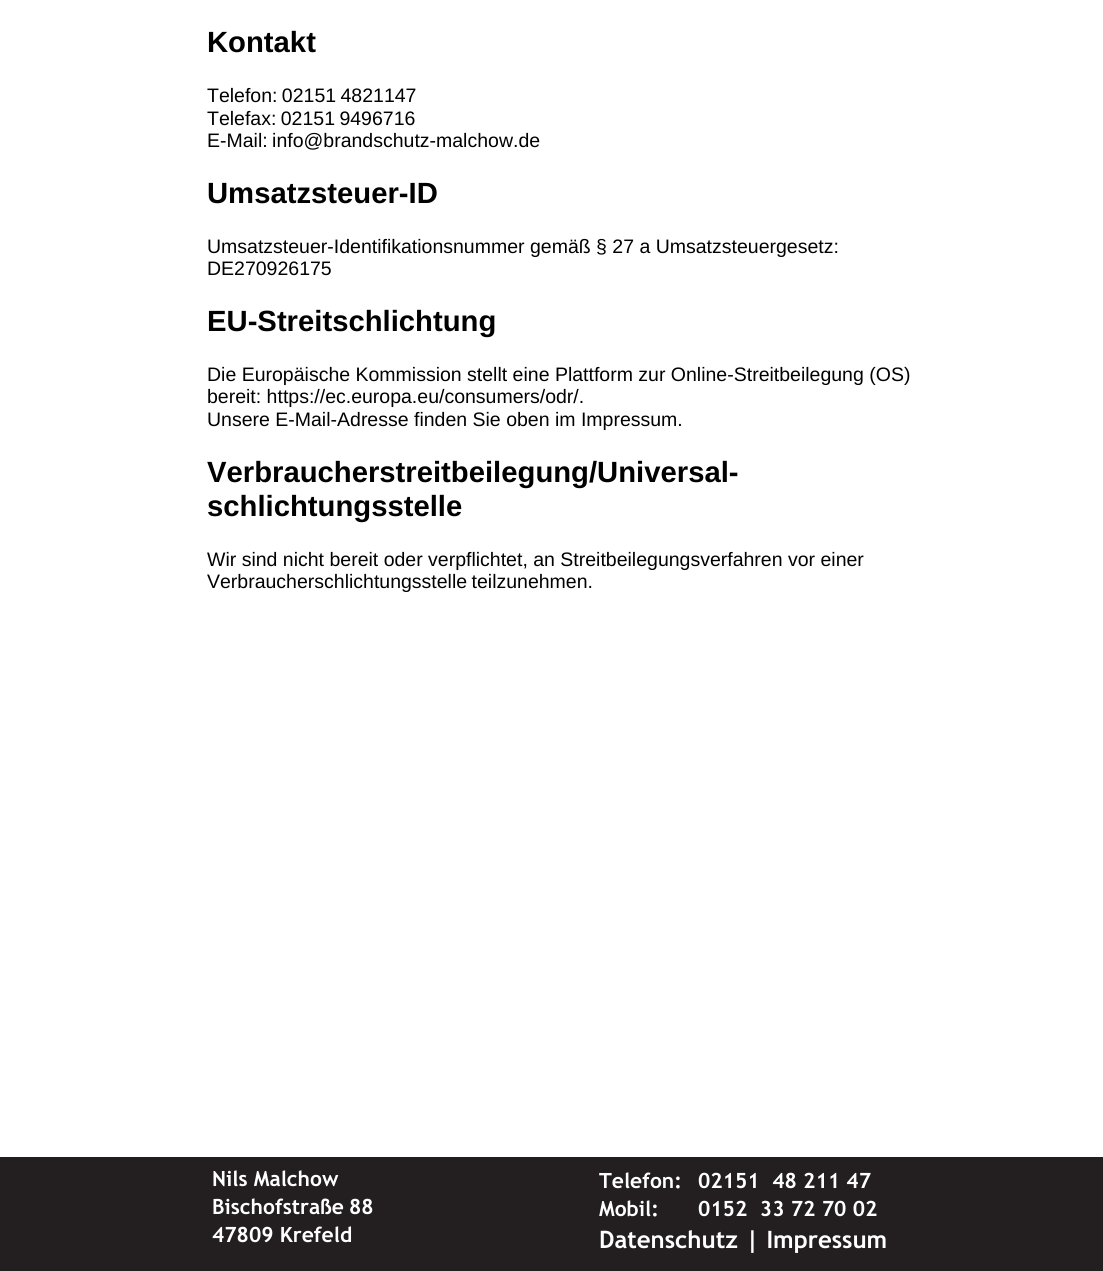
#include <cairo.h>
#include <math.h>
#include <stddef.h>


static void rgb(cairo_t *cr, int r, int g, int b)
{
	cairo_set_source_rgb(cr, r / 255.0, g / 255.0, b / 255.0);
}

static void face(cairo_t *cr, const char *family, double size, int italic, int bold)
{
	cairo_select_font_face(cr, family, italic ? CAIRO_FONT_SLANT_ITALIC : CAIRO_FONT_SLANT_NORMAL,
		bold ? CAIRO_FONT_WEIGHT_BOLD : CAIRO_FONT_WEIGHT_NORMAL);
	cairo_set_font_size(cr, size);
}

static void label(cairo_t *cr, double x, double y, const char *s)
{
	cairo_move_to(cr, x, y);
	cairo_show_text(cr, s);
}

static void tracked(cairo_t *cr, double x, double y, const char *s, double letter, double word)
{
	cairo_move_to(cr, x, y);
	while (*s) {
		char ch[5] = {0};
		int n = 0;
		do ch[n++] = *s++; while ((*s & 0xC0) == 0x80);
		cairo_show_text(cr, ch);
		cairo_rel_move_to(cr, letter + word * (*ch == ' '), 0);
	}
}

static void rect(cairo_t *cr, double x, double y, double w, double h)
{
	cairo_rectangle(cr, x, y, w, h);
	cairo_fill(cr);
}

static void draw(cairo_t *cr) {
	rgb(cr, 255, 255, 255);
	cairo_paint(cr);
	face(cr, "Liberation Sans", 29.25, 0, 1);
	rgb(cr, 0, 0, 0);
	label(cr, 207, 52, "Kontakt");
	face(cr, "Liberation Sans", 19.5, 0, 0);
	tracked(cr, 207, 102, "Telefon: 02151 4821147", 0, -1);
	tracked(cr, 207, 125, "Telefax: 02151 9496716", 0, -1);
	tracked(cr, 207, 147, "E-Mail: info@brandschutz-malchow.de", 0, -1);
	face(cr, "Liberation Sans", 29.25, 0, 1);
	label(cr, 207, 203, "Umsatzsteuer-ID");
	face(cr, "Liberation Sans", 19.5, 0, 0);
	label(cr, 207, 253, "Umsatzsteuer-Identifikationsnummer gemäß § 27 a Umsatzsteuergesetz:");
	label(cr, 207, 275, "DE270926175");
	face(cr, "Liberation Sans", 29.25, 0, 1);
	label(cr, 207, 331, "EU-Streitschlichtung");
	face(cr, "Liberation Sans", 19.5, 0, 0);
	label(cr, 207, 381, "Die Europäische Kommission stellt eine Plattform zur Online-Streitbeilegung (OS)");
	label(cr, 207, 403, "bereit: https://ec.europa.eu/consumers/odr/.");
	label(cr, 207, 426, "Unsere E-Mail-Adresse finden Sie oben im Impressum.");
	face(cr, "Liberation Sans", 29.25, 0, 1);
	label(cr, 207, 482, "Verbraucherstreitbeilegung/Universal-");
	label(cr, 207, 516, "schlichtungsstelle");
	face(cr, "Liberation Sans", 19.5, 0, 0);
	label(cr, 207, 566, "Wir sind nicht bereit oder verpflichtet, an Streitbeilegungsverfahren vor einer");
	tracked(cr, 207, 588, "Verbraucherschlichtungsstelle teilzunehmen.", 0, -1);
	rgb(cr, 35, 31, 32);
	rect(cr, 0, 1157, 1103, 114);
	face(cr, "Trebuchet MS", 21, 0, 1);
	rgb(cr, 255, 255, 255);
	label(cr, 212, 1186, "Nils Malchow");
	tracked(cr, 212, 1214, "Bischofstraße 88", 0, -1);
	label(cr, 212, 1242, "47809 Krefeld");
	label(cr, 599, 1188, "Telefon:");
	label(cr, 698, 1188, "02151  48 211 47");
	label(cr, 599, 1216, "Mobil:");
	label(cr, 698, 1216, "0152  33 72 70 02");
	face(cr, "Trebuchet MS", 24, 0, 1);
	label(cr, 599, 1248, "Datenschutz | Impressum");
}

int main(void) {
	cairo_surface_t *surface = cairo_image_surface_create(CAIRO_FORMAT_RGB24, 1103, 1271);
	cairo_t *cr = cairo_create(surface);
	cairo_font_options_t *options = cairo_font_options_create();
	cairo_font_options_set_hint_metrics(options, CAIRO_HINT_METRICS_OFF);
	cairo_font_options_set_hint_style(options, CAIRO_HINT_STYLE_NONE);
	cairo_set_font_options(cr, options);
	cairo_set_miter_limit(cr, 4);
	draw(cr);
	cairo_surface_write_to_png(surface, "render.png");
	cairo_font_options_destroy(options);
	cairo_destroy(cr);
	cairo_surface_destroy(surface);
	return 0;
}
